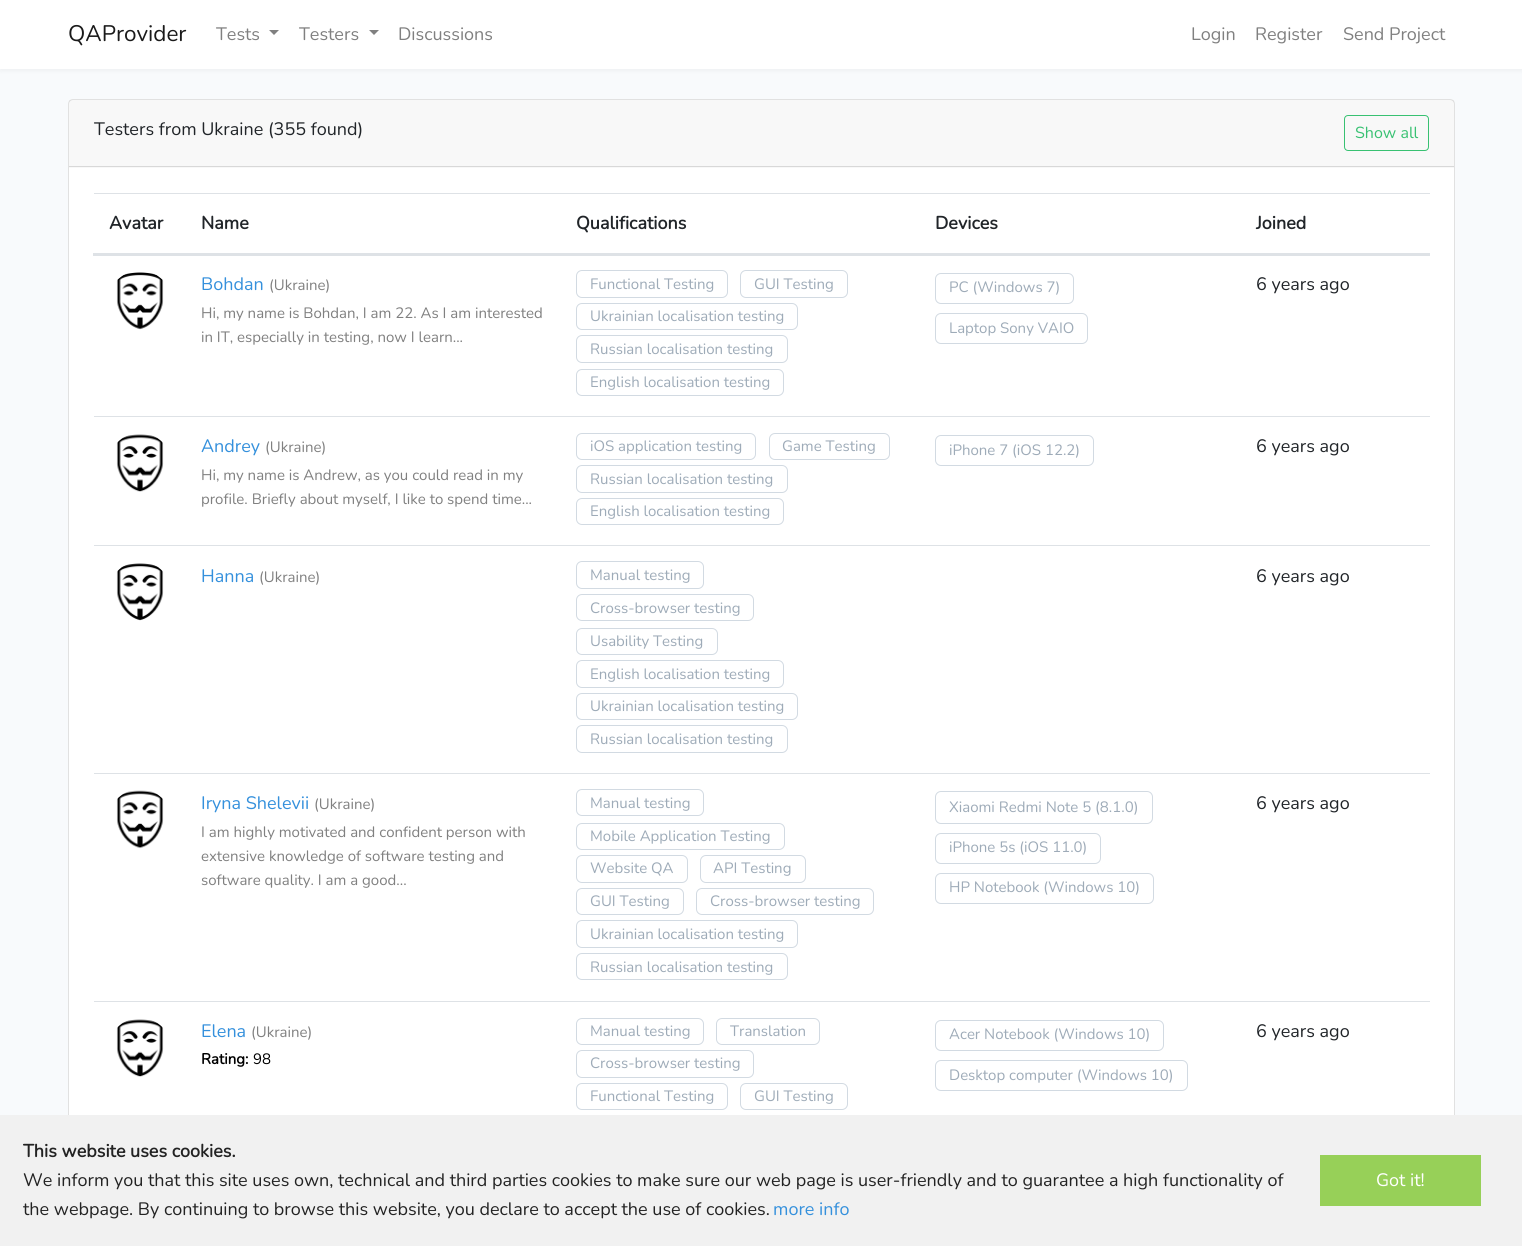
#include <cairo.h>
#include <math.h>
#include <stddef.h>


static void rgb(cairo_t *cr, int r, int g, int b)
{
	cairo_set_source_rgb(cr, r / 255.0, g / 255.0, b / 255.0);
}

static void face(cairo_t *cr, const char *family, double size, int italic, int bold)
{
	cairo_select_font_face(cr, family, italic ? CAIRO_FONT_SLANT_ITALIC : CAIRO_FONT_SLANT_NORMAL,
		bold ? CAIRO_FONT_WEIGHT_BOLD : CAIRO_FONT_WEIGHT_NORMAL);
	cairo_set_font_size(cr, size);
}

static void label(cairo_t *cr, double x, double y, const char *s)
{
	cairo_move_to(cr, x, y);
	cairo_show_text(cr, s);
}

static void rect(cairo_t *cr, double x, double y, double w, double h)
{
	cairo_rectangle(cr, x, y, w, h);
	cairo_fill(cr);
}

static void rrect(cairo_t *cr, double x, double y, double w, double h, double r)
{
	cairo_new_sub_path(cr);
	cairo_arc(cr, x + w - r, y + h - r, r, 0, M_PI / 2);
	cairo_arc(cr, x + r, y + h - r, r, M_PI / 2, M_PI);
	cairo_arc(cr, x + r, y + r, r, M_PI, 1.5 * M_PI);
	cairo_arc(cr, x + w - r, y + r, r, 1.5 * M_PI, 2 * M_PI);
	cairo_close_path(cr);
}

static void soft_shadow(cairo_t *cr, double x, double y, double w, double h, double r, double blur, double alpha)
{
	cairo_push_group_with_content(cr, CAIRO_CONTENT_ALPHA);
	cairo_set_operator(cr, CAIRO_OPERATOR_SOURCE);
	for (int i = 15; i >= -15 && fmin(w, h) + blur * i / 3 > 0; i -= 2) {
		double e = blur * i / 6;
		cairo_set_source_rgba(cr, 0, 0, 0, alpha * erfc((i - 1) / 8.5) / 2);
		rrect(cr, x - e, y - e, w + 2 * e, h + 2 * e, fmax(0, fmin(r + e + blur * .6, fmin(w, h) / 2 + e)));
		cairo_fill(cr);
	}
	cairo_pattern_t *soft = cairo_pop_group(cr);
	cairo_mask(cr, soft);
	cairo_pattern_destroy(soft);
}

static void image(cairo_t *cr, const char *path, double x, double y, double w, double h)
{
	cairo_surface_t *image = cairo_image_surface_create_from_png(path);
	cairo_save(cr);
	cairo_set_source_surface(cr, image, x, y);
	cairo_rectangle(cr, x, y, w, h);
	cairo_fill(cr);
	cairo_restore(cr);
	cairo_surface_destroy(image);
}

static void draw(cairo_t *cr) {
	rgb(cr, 248, 250, 252);
	cairo_paint(cr);
	rgb(cr, 0, 0, 0);
	soft_shadow(cr, 0, 3, 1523, 68, 0, 2.5, 0.04);
	rgb(cr, 255, 255, 255);
	rect(cr, 0, 0, 1522, 69);
	face(cr, "Nunito ExtraLight", 22.5, 0, 0);
	rgb(cr, 26, 26, 26);
	label(cr, 68, 41, "QAProvider");
	face(cr, "Nunito ExtraLight", 18, 0, 0);
	rgb(cr, 128, 128, 128);
	label(cr, 216, 40, "Tests");
	cairo_new_path(cr);
	cairo_move_to(cr, 269, 30);
	cairo_line_to(cr, 279, 30);
	cairo_line_to(cr, 274, 35);
	cairo_close_path(cr);
	cairo_fill(cr);
	label(cr, 299, 40, "Testers");
	cairo_new_path(cr);
	cairo_move_to(cr, 369, 30);
	cairo_line_to(cr, 379, 30);
	cairo_line_to(cr, 374, 35);
	cairo_close_path(cr);
	cairo_fill(cr);
	label(cr, 398, 40, "Discussions");
	label(cr, 1191, 40, "Login");
	label(cr, 1255, 40, "Register");
	label(cr, 1343, 40, "Send Project");
	rgb(cr, 255, 255, 255);
	rrect(cr, 68, 99, 1387, 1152, 5);
	cairo_fill(cr);
	rrect(cr, 68.5, 99.5, 1386, 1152, 4.5);
	cairo_set_source_rgba(cr, 0, 0, 0, 0.12);
	cairo_set_line_width(cr, 1);
	cairo_stroke(cr);
	cairo_set_source_rgba(cr, 0, 0, 0, 0.03);
	rect(cr, 69, 100, 1385, 68);
	rgb(cr, 216, 216, 216);
	rect(cr, 69, 166, 1385, 1);
	rgb(cr, 33, 37, 41);
	label(cr, 94, 135, "Testers from Ukraine (355 found)");
	rrect(cr, 1344.5, 115.5, 84, 35, 3.5);
	rgb(cr, 56, 193, 114);
	cairo_stroke(cr);
	face(cr, "Nunito ExtraLight", 16, 0, 0);
	label(cr, 1355, 138, "Show all");
	face(cr, "Nunito", 18, 0, 1);
	rgb(cr, 33, 37, 41);
	label(cr, 109, 229, "Avatar");
	label(cr, 201, 229, "Name");
	label(cr, 576, 229, "Qualifications");
	label(cr, 935, 229, "Devices");
	rgb(cr, 222, 226, 230);
	rect(cr, 94, 193, 1336, 1);
	rect(cr, 93, 253, 1337, 3);
	rgb(cr, 33, 37, 41);
	label(cr, 1256, 229, "Joined");
	image(cr, "image0.png", 116, 272, 48, 58);
	face(cr, "Nunito ExtraLight", 18, 0, 0);
	rgb(cr, 52, 144, 220);
	label(cr, 201, 290, "Bohdan");
	face(cr, "Nunito ExtraLight", 15, 0, 0);
	rgb(cr, 128, 128, 128);
	label(cr, 269, 290, "(Ukraine)");
	label(cr, 201, 318, "Hi, my name is Bohdan, I am 22. As I am interested");
	label(cr, 201, 342, "in IT, especially in testing, now I learn...");
	rrect(cr, 576.5, 270.5, 151, 27, 5.5);
	rgb(cr, 210, 218, 226);
	cairo_stroke(cr);
	rgb(cr, 158, 171, 184);
	label(cr, 590, 289, "Functional Testing");
	rrect(cr, 740.5, 270.5, 107, 27, 5.5);
	rgb(cr, 210, 218, 226);
	cairo_stroke(cr);
	rgb(cr, 158, 171, 184);
	label(cr, 754, 289, "GUI Testing");
	rrect(cr, 576.5, 303.5, 221, 26, 5.5);
	rgb(cr, 210, 218, 226);
	cairo_stroke(cr);
	rgb(cr, 158, 171, 184);
	label(cr, 590, 321, "Ukrainian localisation testing");
	rrect(cr, 576.5, 335.5, 211, 27, 5.5);
	rgb(cr, 210, 218, 226);
	cairo_stroke(cr);
	rgb(cr, 158, 171, 184);
	label(cr, 590, 354, "Russian localisation testing");
	rrect(cr, 576.5, 369.5, 207, 26, 5.5);
	rgb(cr, 210, 218, 226);
	cairo_stroke(cr);
	rgb(cr, 158, 171, 184);
	label(cr, 590, 387, "English localisation testing");
	rrect(cr, 935.5, 273.5, 138, 30, 5.5);
	rgb(cr, 210, 218, 226);
	cairo_stroke(cr);
	rgb(cr, 158, 171, 184);
	label(cr, 949, 292, "PC (Windows 7)");
	rrect(cr, 935.5, 313.5, 152, 30, 5.5);
	rgb(cr, 210, 218, 226);
	cairo_stroke(cr);
	rgb(cr, 158, 171, 184);
	label(cr, 949, 333, "Laptop Sony VAIO");
	face(cr, "Nunito ExtraLight", 18, 0, 0);
	rgb(cr, 33, 37, 41);
	label(cr, 1256, 290, "6 years ago");
	image(cr, "image1.png", 116, 434, 48, 58);
	rgb(cr, 52, 144, 220);
	label(cr, 201, 452, "Andrey");
	face(cr, "Nunito ExtraLight", 15, 0, 0);
	rgb(cr, 128, 128, 128);
	label(cr, 265, 452, "(Ukraine)");
	label(cr, 201, 480, "Hi, my name is Andrew, as you could read in my");
	label(cr, 201, 504, "profile. Briefly about myself, I like to spend time...");
	rrect(cr, 576.5, 433.5, 179, 26, 5.5);
	rgb(cr, 210, 218, 226);
	cairo_stroke(cr);
	rgb(cr, 158, 171, 184);
	label(cr, 590, 451, "iOS application testing");
	rrect(cr, 769.5, 433.5, 120, 26, 5.5);
	rgb(cr, 210, 218, 226);
	cairo_stroke(cr);
	rgb(cr, 158, 171, 184);
	label(cr, 782, 451, "Game Testing");
	rrect(cr, 576.5, 465.5, 211, 27, 5.5);
	rgb(cr, 210, 218, 226);
	cairo_stroke(cr);
	rgb(cr, 158, 171, 184);
	label(cr, 590, 484, "Russian localisation testing");
	rrect(cr, 576.5, 498.5, 207, 26, 5.5);
	rgb(cr, 210, 218, 226);
	cairo_stroke(cr);
	rgb(cr, 158, 171, 184);
	label(cr, 590, 516, "English localisation testing");
	rrect(cr, 935.5, 435.5, 158, 30, 5.5);
	rgb(cr, 210, 218, 226);
	cairo_stroke(cr);
	rgb(cr, 158, 171, 184);
	label(cr, 949, 455, "iPhone 7 (iOS 12.2)");
	rgb(cr, 222, 226, 230);
	rect(cr, 94, 416, 1336, 1);
	face(cr, "Nunito ExtraLight", 18, 0, 0);
	rgb(cr, 33, 37, 41);
	label(cr, 1256, 452, "6 years ago");
	image(cr, "image2.png", 116, 563, 48, 58);
	rgb(cr, 52, 144, 220);
	label(cr, 201, 582, "Hanna");
	face(cr, "Nunito ExtraLight", 15, 0, 0);
	rgb(cr, 128, 128, 128);
	label(cr, 259, 582, "(Ukraine)");
	rrect(cr, 576.5, 561.5, 127, 27, 5.5);
	rgb(cr, 210, 218, 226);
	cairo_stroke(cr);
	rgb(cr, 158, 171, 184);
	label(cr, 590, 580, "Manual testing");
	rrect(cr, 576.5, 594.5, 177, 26, 5.5);
	rgb(cr, 210, 218, 226);
	cairo_stroke(cr);
	rgb(cr, 158, 171, 184);
	label(cr, 590, 613, "Cross-browser testing");
	rrect(cr, 576.5, 628.5, 141, 26, 5.5);
	rgb(cr, 210, 218, 226);
	cairo_stroke(cr);
	rgb(cr, 158, 171, 184);
	label(cr, 590, 646, "Usability Testing");
	rrect(cr, 576.5, 660.5, 207, 27, 5.5);
	rgb(cr, 210, 218, 226);
	cairo_stroke(cr);
	rgb(cr, 158, 171, 184);
	label(cr, 590, 679, "English localisation testing");
	rrect(cr, 576.5, 693.5, 221, 26, 5.5);
	rgb(cr, 210, 218, 226);
	cairo_stroke(cr);
	rgb(cr, 158, 171, 184);
	label(cr, 590, 711, "Ukrainian localisation testing");
	rrect(cr, 576.5, 725.5, 211, 27, 5.5);
	rgb(cr, 210, 218, 226);
	cairo_stroke(cr);
	rgb(cr, 158, 171, 184);
	label(cr, 590, 744, "Russian localisation testing");
	rgb(cr, 222, 226, 230);
	rect(cr, 94, 545, 1336, 1);
	face(cr, "Nunito ExtraLight", 18, 0, 0);
	rgb(cr, 33, 37, 41);
	label(cr, 1256, 582, "6 years ago");
	image(cr, "image3.png", 116, 790, 48, 59);
	rgb(cr, 52, 144, 220);
	label(cr, 201, 809, "Iryna Shelevii");
	face(cr, "Nunito ExtraLight", 15, 0, 0);
	rgb(cr, 128, 128, 128);
	label(cr, 314, 809, "(Ukraine)");
	label(cr, 201, 837, "I am highly motivated and confident person with");
	label(cr, 201, 861, "extensive knowledge of software testing and");
	label(cr, 201, 885, "software quality. I am a good...");
	rrect(cr, 576.5, 789.5, 127, 26, 5.5);
	rgb(cr, 210, 218, 226);
	cairo_stroke(cr);
	rgb(cr, 158, 171, 184);
	label(cr, 590, 808, "Manual testing");
	rrect(cr, 576.5, 823.5, 208, 26, 5.5);
	rgb(cr, 210, 218, 226);
	cairo_stroke(cr);
	rgb(cr, 158, 171, 184);
	label(cr, 590, 841, "Mobile Application Testing");
	rrect(cr, 576.5, 855.5, 111, 27, 5.5);
	rgb(cr, 210, 218, 226);
	cairo_stroke(cr);
	rgb(cr, 158, 171, 184);
	label(cr, 590, 873, "Website QA");
	rrect(cr, 700.5, 855.5, 105, 27, 5.5);
	rgb(cr, 210, 218, 226);
	cairo_stroke(cr);
	rgb(cr, 158, 171, 184);
	label(cr, 713, 873, "API Testing");
	rrect(cr, 576.5, 888.5, 107, 26, 5.5);
	rgb(cr, 210, 218, 226);
	cairo_stroke(cr);
	rgb(cr, 158, 171, 184);
	label(cr, 590, 906, "GUI Testing");
	rrect(cr, 696.5, 888.5, 177, 26, 5.5);
	rgb(cr, 210, 218, 226);
	cairo_stroke(cr);
	rgb(cr, 158, 171, 184);
	label(cr, 710, 906, "Cross-browser testing");
	rrect(cr, 576.5, 920.5, 221, 27, 5.5);
	rgb(cr, 210, 218, 226);
	cairo_stroke(cr);
	rgb(cr, 158, 171, 184);
	label(cr, 590, 939, "Ukrainian localisation testing");
	rrect(cr, 576.5, 953.5, 211, 26, 5.5);
	rgb(cr, 210, 218, 226);
	cairo_stroke(cr);
	rgb(cr, 158, 171, 184);
	label(cr, 590, 972, "Russian localisation testing");
	rrect(cr, 935.5, 791.5, 217, 32, 5.5);
	rgb(cr, 210, 218, 226);
	cairo_stroke(cr);
	rgb(cr, 158, 171, 184);
	label(cr, 949, 812, "Xiaomi Redmi Note 5 (8.1.0)");
	rrect(cr, 935.5, 833.5, 165, 30, 5.5);
	rgb(cr, 210, 218, 226);
	cairo_stroke(cr);
	rgb(cr, 158, 171, 184);
	label(cr, 949, 852, "iPhone 5s (iOS 11.0)");
	rrect(cr, 935.5, 873.5, 218, 30, 5.5);
	rgb(cr, 210, 218, 226);
	cairo_stroke(cr);
	rgb(cr, 158, 171, 184);
	label(cr, 949, 892, "HP Notebook (Windows 10)");
	rgb(cr, 222, 226, 230);
	rect(cr, 94, 773, 1336, 1);
	face(cr, "Nunito ExtraLight", 18, 0, 0);
	rgb(cr, 33, 37, 41);
	label(cr, 1256, 809, "6 years ago");
	image(cr, "image1.png", 116, 1019, 48, 58);
	rgb(cr, 52, 144, 220);
	label(cr, 201, 1037, "Elena");
	face(cr, "Nunito ExtraLight", 15, 0, 0);
	rgb(cr, 128, 128, 128);
	label(cr, 251, 1037, "(Ukraine)");
	face(cr, "Nunito", 15, 0, 1);
	rgb(cr, 0, 0, 0);
	label(cr, 201, 1064, "Rating:");
	face(cr, "Nunito ExtraLight", 15, 0, 0);
	label(cr, 253, 1064, "98");
	rrect(cr, 576.5, 1018.5, 127, 26, 5.5);
	rgb(cr, 210, 218, 226);
	cairo_stroke(cr);
	rgb(cr, 158, 171, 184);
	label(cr, 590, 1036, "Manual testing");
	rrect(cr, 716.5, 1018.5, 103, 26, 5.5);
	rgb(cr, 210, 218, 226);
	cairo_stroke(cr);
	rgb(cr, 158, 171, 184);
	label(cr, 730, 1036, "Translation");
	rrect(cr, 576.5, 1050.5, 177, 27, 5.5);
	rgb(cr, 210, 218, 226);
	cairo_stroke(cr);
	rgb(cr, 158, 171, 184);
	label(cr, 590, 1068, "Cross-browser testing");
	rrect(cr, 576.5, 1083.5, 151, 26, 5.5);
	rgb(cr, 210, 218, 226);
	cairo_stroke(cr);
	rgb(cr, 158, 171, 184);
	label(cr, 590, 1101, "Functional Testing");
	rrect(cr, 740.5, 1083.5, 107, 26, 5.5);
	rgb(cr, 210, 218, 226);
	cairo_stroke(cr);
	rgb(cr, 158, 171, 184);
	label(cr, 754, 1101, "GUI Testing");
	rrect(cr, 935.5, 1020.5, 228, 30, 5.5);
	rgb(cr, 210, 218, 226);
	cairo_stroke(cr);
	rgb(cr, 158, 171, 184);
	label(cr, 949, 1039, "Acer Notebook (Windows 10)");
	rrect(cr, 935.5, 1060.5, 252, 30, 5.5);
	rgb(cr, 210, 218, 226);
	cairo_stroke(cr);
	rgb(cr, 158, 171, 184);
	label(cr, 949, 1080, "Desktop computer (Windows 10)");
	rgb(cr, 222, 226, 230);
	rect(cr, 94, 1001, 1336, 1);
	face(cr, "Nunito ExtraLight", 18, 0, 0);
	rgb(cr, 33, 37, 41);
	label(cr, 1256, 1037, "6 years ago");
	rgb(cr, 241, 241, 241);
	rect(cr, 0, 1115, 1522, 131);
	face(cr, "Nunito", 18, 0, 1);
	rgb(cr, 35, 35, 35);
	label(cr, 23, 1157, "This website uses cookies.");
	face(cr, "Nunito ExtraLight", 18, 0, 0);
	label(cr, 23, 1186, "We inform you that this site uses own, technical and third parties cookies to make sure our web page is user-friendly and to guarantee a high functionality of");
	label(cr, 23, 1215, "the webpage. By continuing to browse this website, you declare to accept the use of cookies.");
	rgb(cr, 52, 144, 220);
	label(cr, 773, 1215, "more info");
	rgb(cr, 151, 208, 88);
	rect(cr, 1320, 1155, 161, 51);
	rgb(cr, 255, 255, 255);
	label(cr, 1376, 1186, "Got it!");
}

int main(void) {
	cairo_surface_t *surface = cairo_image_surface_create(CAIRO_FORMAT_RGB24, 1522, 1246);
	cairo_t *cr = cairo_create(surface);
	cairo_font_options_t *options = cairo_font_options_create();
	cairo_font_options_set_hint_metrics(options, CAIRO_HINT_METRICS_OFF);
	cairo_font_options_set_hint_style(options, CAIRO_HINT_STYLE_NONE);
	cairo_set_font_options(cr, options);
	cairo_set_miter_limit(cr, 4);
	draw(cr);
	cairo_surface_write_to_png(surface, "render.png");
	cairo_font_options_destroy(options);
	cairo_destroy(cr);
	cairo_surface_destroy(surface);
	return 0;
}
